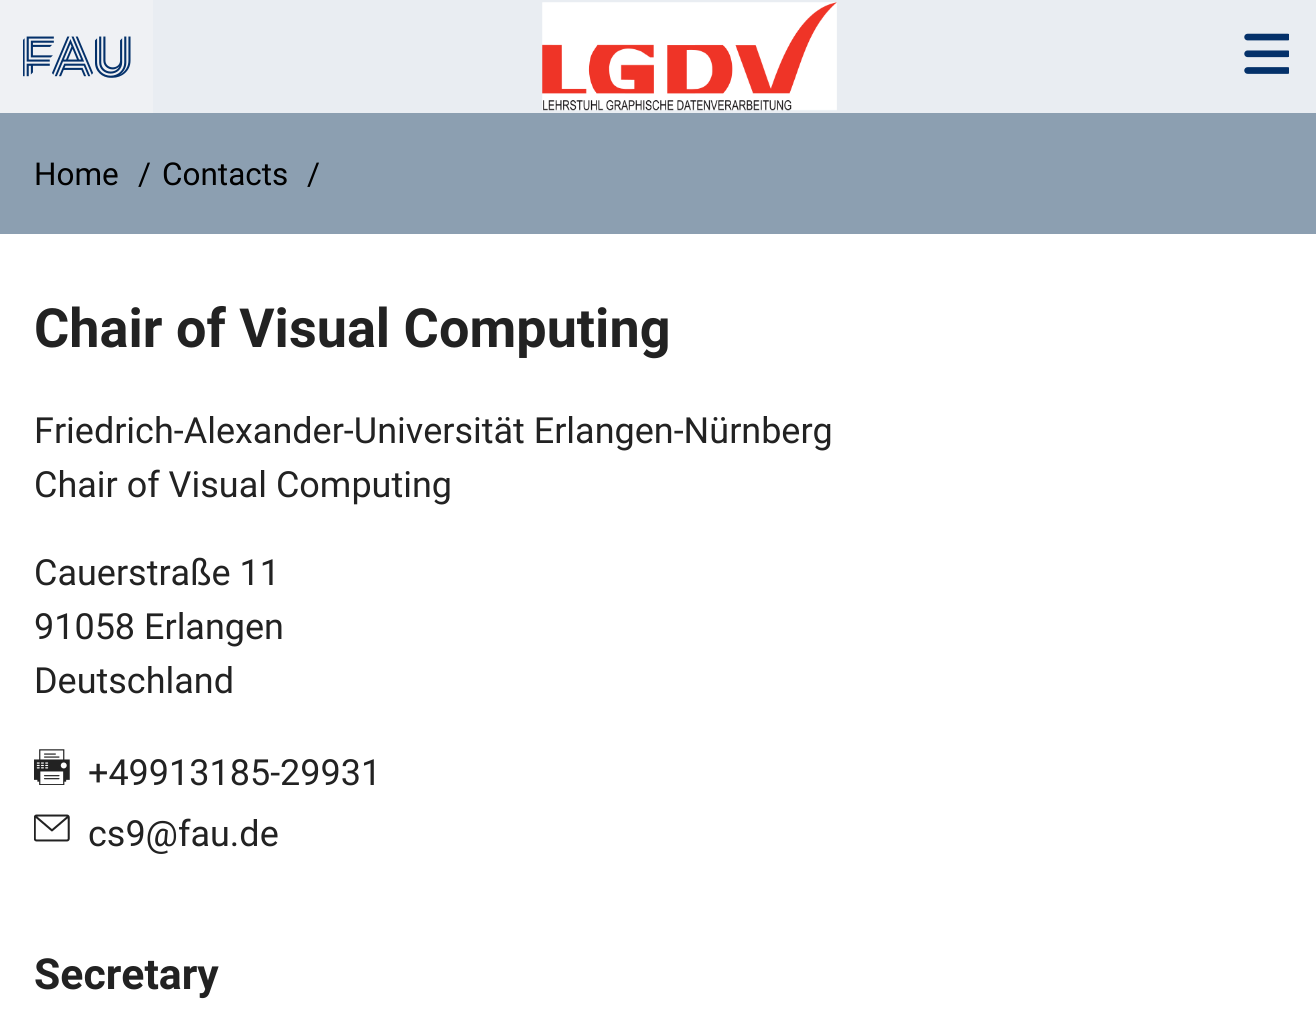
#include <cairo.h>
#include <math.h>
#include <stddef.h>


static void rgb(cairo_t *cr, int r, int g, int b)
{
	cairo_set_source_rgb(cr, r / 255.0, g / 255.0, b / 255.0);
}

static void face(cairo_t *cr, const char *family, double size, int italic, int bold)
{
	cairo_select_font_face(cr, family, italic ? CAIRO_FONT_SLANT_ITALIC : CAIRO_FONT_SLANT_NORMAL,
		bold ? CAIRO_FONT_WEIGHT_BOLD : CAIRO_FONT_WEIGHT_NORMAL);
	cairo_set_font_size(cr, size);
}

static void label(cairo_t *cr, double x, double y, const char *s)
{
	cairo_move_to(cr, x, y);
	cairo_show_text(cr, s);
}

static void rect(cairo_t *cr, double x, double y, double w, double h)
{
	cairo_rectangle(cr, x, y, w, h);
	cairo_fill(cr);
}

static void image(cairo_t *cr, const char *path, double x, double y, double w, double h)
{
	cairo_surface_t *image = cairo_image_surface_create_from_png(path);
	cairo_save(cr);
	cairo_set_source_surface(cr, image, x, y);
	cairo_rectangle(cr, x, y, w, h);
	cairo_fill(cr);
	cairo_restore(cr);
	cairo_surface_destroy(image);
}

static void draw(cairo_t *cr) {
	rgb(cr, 255, 255, 255);
	cairo_paint(cr);
	rgb(cr, 233, 237, 242);
	rect(cr, 153, 0, 1163, 113);
	rgb(cr, 239, 241, 244);
	rect(cr, 0, 0, 153, 113);
	image(cr, "image0.png", 23, 36, 108, 42);
	image(cr, "image1.png", 542, 2, 295, 109);
	image(cr, "image2.png", 1244, 33, 45, 41);
	rgb(cr, 140, 159, 177);
	rect(cr, 0, 113, 1316, 121);
	face(cr, "Roboto", 31.5, 0, 0);
	rgb(cr, 0, 0, 0);
	label(cr, 34, 185, "Home");
	label(cr, 138, 185, "/");
	label(cr, 162, 185, "Contacts");
	label(cr, 307, 185, "/");
	face(cr, "Roboto", 54, 0, 1);
	rgb(cr, 34, 34, 34);
	label(cr, 34, 347, "Chair of Visual Computing");
	face(cr, "Roboto", 36, 0, 0);
	label(cr, 34, 443, "Friedrich-Alexander-Universität Erlangen-Nürnberg");
	label(cr, 34, 497, "Chair of Visual Computing");
	label(cr, 34, 585, "Cauerstraße 11");
	label(cr, 34, 639, "91058 Erlangen");
	label(cr, 34, 693, "Deutschland");
	image(cr, "image3.png", 34, 749, 36, 36);
	label(cr, 88, 785, "+49913185-29931");
	image(cr, "image4.png", 34, 814, 36, 28);
	label(cr, 88, 846, "cs9@fau.de");
	face(cr, "Roboto", 42.75, 0, 1);
	label(cr, 34, 989, "Secretary");
}

int main(void) {
	cairo_surface_t *surface = cairo_image_surface_create(CAIRO_FORMAT_RGB24, 1316, 1033);
	cairo_t *cr = cairo_create(surface);
	cairo_font_options_t *options = cairo_font_options_create();
	cairo_font_options_set_hint_metrics(options, CAIRO_HINT_METRICS_OFF);
	cairo_font_options_set_hint_style(options, CAIRO_HINT_STYLE_NONE);
	cairo_set_font_options(cr, options);
	cairo_set_miter_limit(cr, 4);
	draw(cr);
	cairo_surface_write_to_png(surface, "render.png");
	cairo_font_options_destroy(options);
	cairo_destroy(cr);
	cairo_surface_destroy(surface);
	return 0;
}
